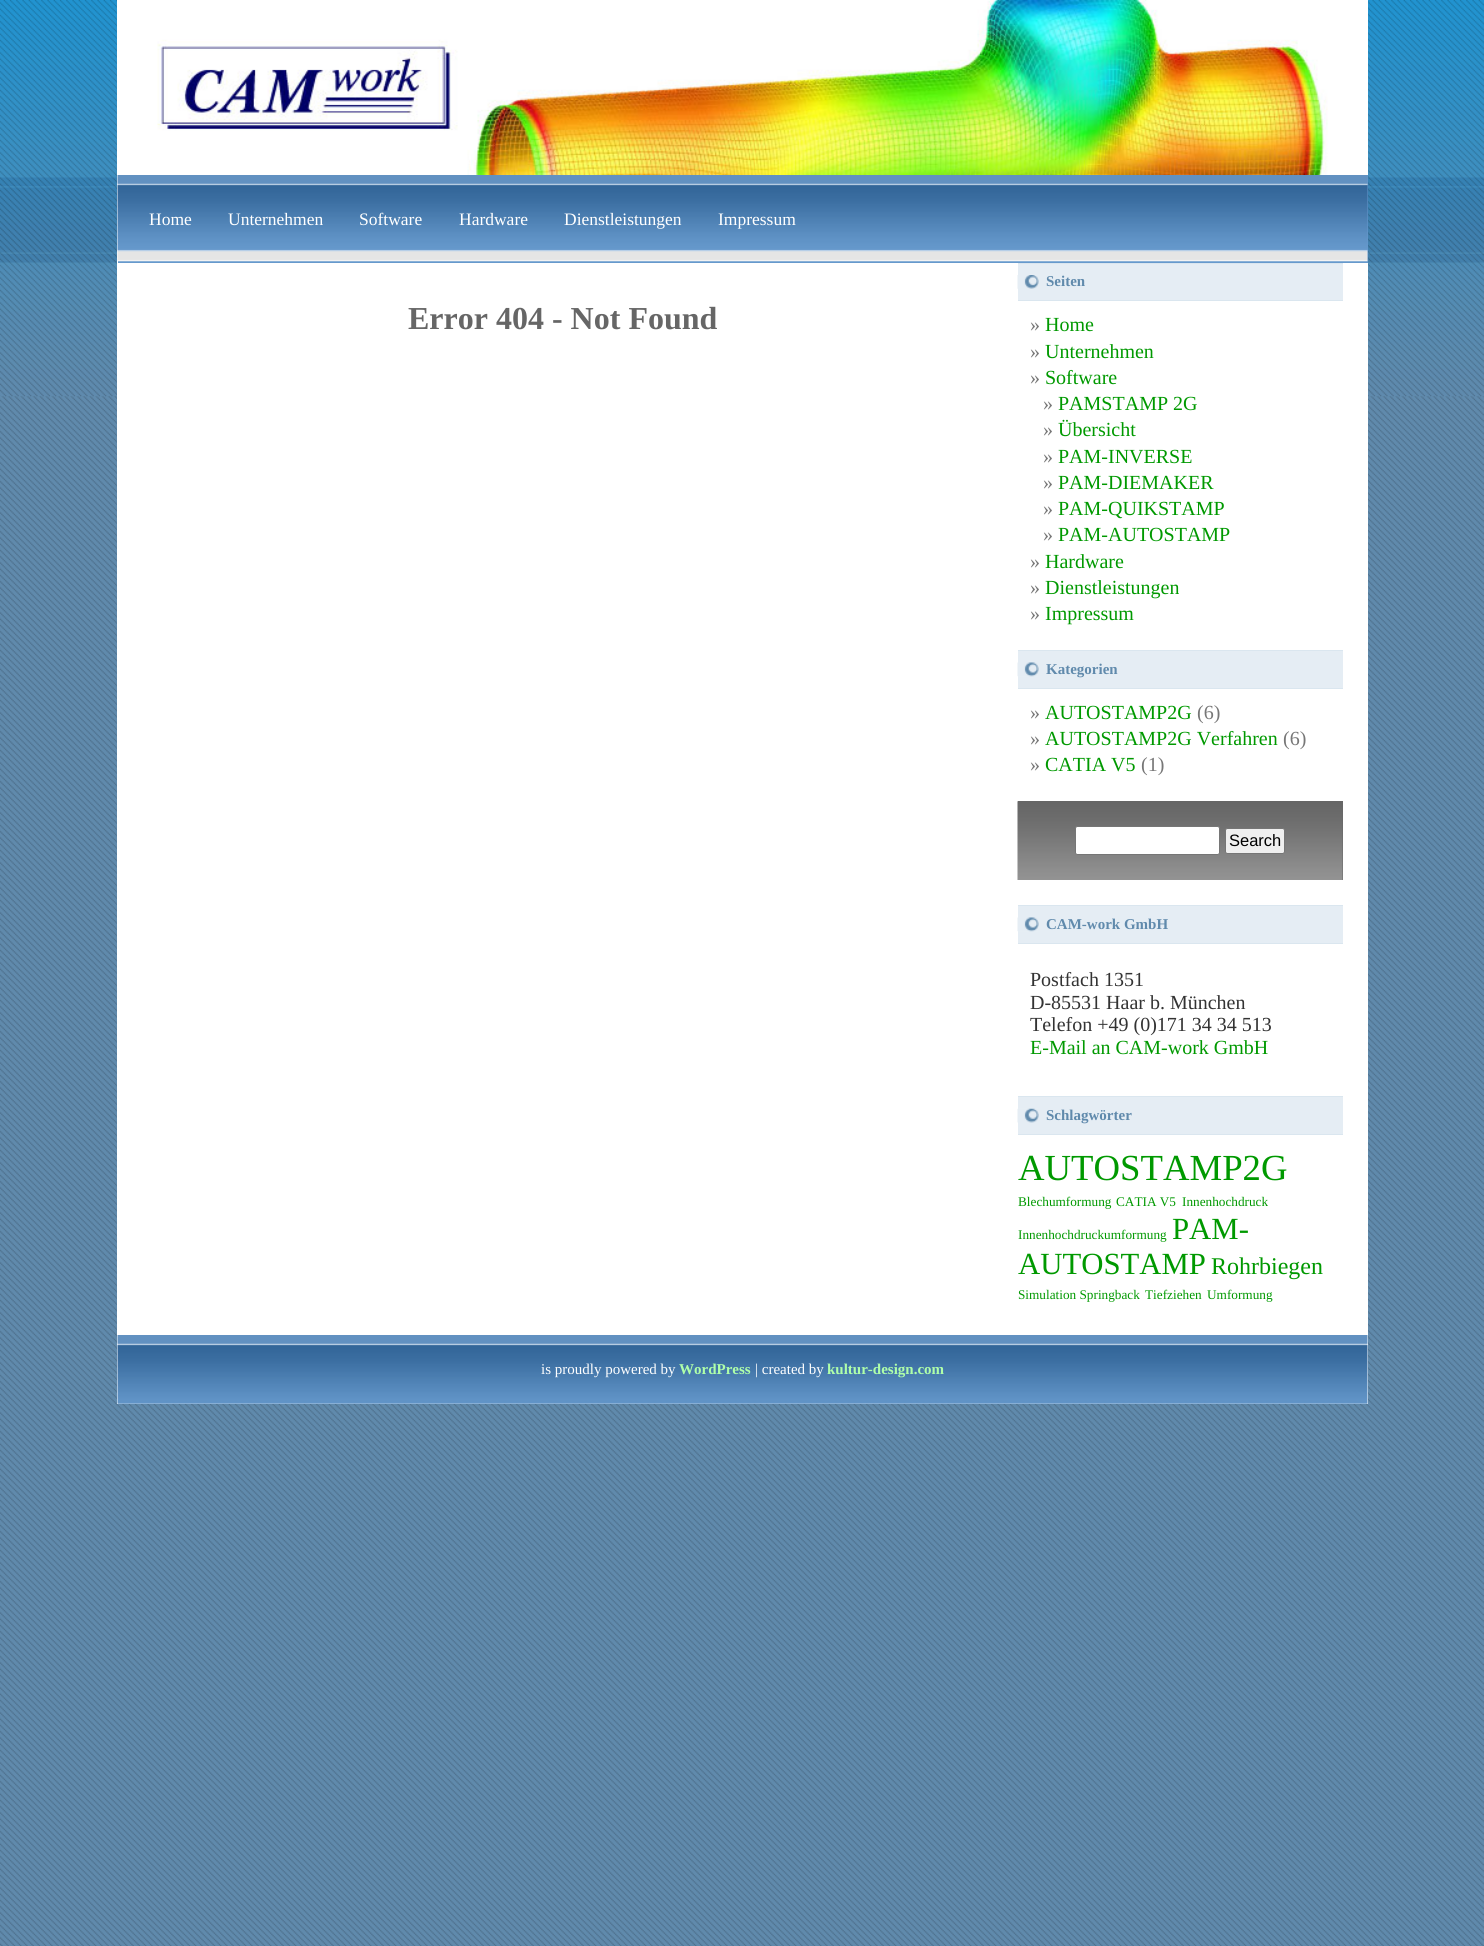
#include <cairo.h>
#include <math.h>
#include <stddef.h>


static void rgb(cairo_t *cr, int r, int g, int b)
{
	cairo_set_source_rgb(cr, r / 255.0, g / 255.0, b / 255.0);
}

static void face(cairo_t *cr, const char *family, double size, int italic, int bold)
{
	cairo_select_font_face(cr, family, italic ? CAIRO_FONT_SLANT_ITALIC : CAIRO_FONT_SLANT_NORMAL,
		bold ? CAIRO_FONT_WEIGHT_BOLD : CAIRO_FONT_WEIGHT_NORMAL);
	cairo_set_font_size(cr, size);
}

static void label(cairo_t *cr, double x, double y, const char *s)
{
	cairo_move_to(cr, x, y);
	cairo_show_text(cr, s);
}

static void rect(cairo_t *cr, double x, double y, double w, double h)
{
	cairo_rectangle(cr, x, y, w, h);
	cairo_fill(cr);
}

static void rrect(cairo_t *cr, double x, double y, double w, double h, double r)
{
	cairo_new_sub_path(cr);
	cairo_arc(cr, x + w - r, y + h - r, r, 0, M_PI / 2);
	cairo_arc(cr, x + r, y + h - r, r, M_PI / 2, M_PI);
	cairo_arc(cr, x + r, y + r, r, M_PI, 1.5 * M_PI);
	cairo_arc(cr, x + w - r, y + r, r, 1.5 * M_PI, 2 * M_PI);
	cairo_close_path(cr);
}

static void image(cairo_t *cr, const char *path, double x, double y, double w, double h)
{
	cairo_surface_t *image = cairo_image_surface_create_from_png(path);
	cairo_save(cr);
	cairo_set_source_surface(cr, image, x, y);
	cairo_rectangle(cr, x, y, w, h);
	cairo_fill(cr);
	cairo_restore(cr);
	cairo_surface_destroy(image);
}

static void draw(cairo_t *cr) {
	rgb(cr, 255, 255, 255);
	cairo_paint(cr);
	image(cr, "image0.png", 0, 396, 1484, 1550);
	image(cr, "image1.png", 0, 0, 1484, 397);
	rgb(cr, 255, 255, 255);
	rect(cr, 117, 0, 1251, 1404);
	image(cr, "image2.png", 157, 0, 1171, 175);
	rgb(cr, 102, 153, 204);
	rect(cr, 118, 175, 1250, 88);
	image(cr, "image3.png", 117, 175, 1251, 87);
	face(cr, "Liberation Serif", 17.5, 0, 0);
	rgb(cr, 255, 255, 255);
	label(cr, 149, 225, "Home");
	label(cr, 228, 225, "Unternehmen");
	label(cr, 359, 225, "Software");
	label(cr, 459, 225, "Hardware");
	label(cr, 564, 225, "Dienstleistungen");
	label(cr, 718, 225, "Impressum");
	face(cr, "Liberation Serif", 32, 0, 1);
	rgb(cr, 102, 102, 102);
	label(cr, 408, 329, "Error 404 - Not Found");
	rgb(cr, 229, 237, 244);
	rect(cr, 1018, 264, 325, 36);
	image(cr, "image4.png", 1017, 275, 22, 14);
	rgb(cr, 218, 230, 239);
	rect(cr, 1018, 263, 325, 1);
	rect(cr, 1018, 300, 325, 1);
	face(cr, "Liberation Serif", 15, 0, 1);
	rgb(cr, 96, 138, 172);
	label(cr, 1046, 286, "Seiten");
	face(cr, "Liberation Serif", 20, 0, 0);
	rgb(cr, 119, 119, 119);
	label(cr, 1030, 331, "»");
	rgb(cr, 0, 153, 0);
	label(cr, 1045, 331, "Home");
	rgb(cr, 119, 119, 119);
	label(cr, 1030, 358, "»");
	rgb(cr, 0, 153, 0);
	label(cr, 1045, 358, "Unternehmen");
	rgb(cr, 119, 119, 119);
	label(cr, 1030, 384, "»");
	rgb(cr, 0, 153, 0);
	label(cr, 1045, 384, "Software");
	rgb(cr, 119, 119, 119);
	label(cr, 1043, 410, "»");
	rgb(cr, 0, 153, 0);
	label(cr, 1058, 410, "PAMSTAMP 2G");
	rgb(cr, 119, 119, 119);
	label(cr, 1043, 436, "»");
	rgb(cr, 0, 153, 0);
	label(cr, 1058, 436, "Übersicht");
	rgb(cr, 119, 119, 119);
	label(cr, 1043, 463, "»");
	rgb(cr, 0, 153, 0);
	label(cr, 1058, 463, "PAM-INVERSE");
	rgb(cr, 119, 119, 119);
	label(cr, 1043, 489, "»");
	rgb(cr, 0, 153, 0);
	label(cr, 1058, 489, "PAM-DIEMAKER");
	rgb(cr, 119, 119, 119);
	label(cr, 1043, 515, "»");
	rgb(cr, 0, 153, 0);
	label(cr, 1058, 515, "PAM-QUIKSTAMP");
	rgb(cr, 119, 119, 119);
	label(cr, 1043, 541, "»");
	rgb(cr, 0, 153, 0);
	label(cr, 1058, 541, "PAM-AUTOSTAMP");
	rgb(cr, 119, 119, 119);
	label(cr, 1030, 568, "»");
	rgb(cr, 0, 153, 0);
	label(cr, 1045, 568, "Hardware");
	rgb(cr, 119, 119, 119);
	label(cr, 1030, 594, "»");
	rgb(cr, 0, 153, 0);
	label(cr, 1045, 594, "Dienstleistungen");
	rgb(cr, 119, 119, 119);
	label(cr, 1030, 620, "»");
	rgb(cr, 0, 153, 0);
	label(cr, 1045, 620, "Impressum");
	rgb(cr, 229, 237, 244);
	rect(cr, 1018, 651, 325, 37);
	image(cr, "image5.png", 1017, 662, 22, 15);
	rgb(cr, 218, 230, 239);
	rect(cr, 1018, 650, 325, 1);
	rect(cr, 1018, 688, 325, 1);
	face(cr, "Liberation Serif", 15, 0, 1);
	rgb(cr, 96, 138, 172);
	label(cr, 1046, 674, "Kategorien");
	face(cr, "Liberation Serif", 20, 0, 0);
	rgb(cr, 119, 119, 119);
	label(cr, 1030, 719, "»");
	rgb(cr, 0, 153, 0);
	label(cr, 1045, 719, "AUTOSTAMP2G");
	rgb(cr, 119, 119, 119);
	label(cr, 1197, 719, "(6)");
	label(cr, 1030, 745, "»");
	rgb(cr, 0, 153, 0);
	label(cr, 1045, 745, "AUTOSTAMP2G Verfahren");
	rgb(cr, 119, 119, 119);
	label(cr, 1283, 745, "(6)");
	label(cr, 1030, 771, "»");
	rgb(cr, 0, 153, 0);
	label(cr, 1045, 771, "CATIA V5");
	rgb(cr, 119, 119, 119);
	label(cr, 1141, 771, "(1)");
	rgb(cr, 102, 102, 102);
	rect(cr, 1018, 801, 325, 79);
	image(cr, "image6.png", 1017, 801, 326, 79);
	rgb(cr, 255, 255, 255);
	rrect(cr, 1075.5, 826.5, 144, 28, 2);
	cairo_fill_preserve(cr);
	rgb(cr, 118, 118, 118);
	cairo_set_line_width(cr, 1);
	cairo_stroke(cr);
	rgb(cr, 239, 239, 239);
	rrect(cr, 1225.5, 828.5, 59, 25, 2);
	cairo_fill_preserve(cr);
	rgb(cr, 118, 118, 118);
	cairo_stroke(cr);
	face(cr, "Liberation Sans", 16.5, 0, 0);
	rgb(cr, 0, 0, 0);
	label(cr, 1229, 846, "Search");
	rgb(cr, 229, 237, 244);
	rect(cr, 1018, 906, 325, 37);
	image(cr, "image5.png", 1017, 917, 22, 15);
	rgb(cr, 218, 230, 239);
	rect(cr, 1018, 905, 325, 1);
	rect(cr, 1018, 943, 325, 1);
	face(cr, "Liberation Serif", 15, 0, 1);
	rgb(cr, 96, 138, 172);
	label(cr, 1046, 929, "CAM-work GmbH");
	face(cr, "Liberation Serif", 20, 0, 0);
	rgb(cr, 51, 51, 51);
	label(cr, 1030, 986, "Postfach 1351");
	label(cr, 1030, 1009, "D-85531 Haar b. München");
	label(cr, 1030, 1031, "Telefon +49 (0)171 34 34 513");
	rgb(cr, 0, 153, 0);
	label(cr, 1030, 1054, "E-Mail an CAM-work GmbH");
	rgb(cr, 229, 237, 244);
	rect(cr, 1018, 1097, 325, 37);
	image(cr, "image7.png", 1017, 1108, 22, 15);
	rgb(cr, 218, 230, 239);
	rect(cr, 1018, 1096, 325, 1);
	rect(cr, 1018, 1134, 325, 1);
	face(cr, "Liberation Serif", 15, 0, 1);
	rgb(cr, 96, 138, 172);
	label(cr, 1046, 1120, "Schlagwörter");
	face(cr, "Liberation Serif", 36.75, 0, 0);
	rgb(cr, 0, 153, 0);
	label(cr, 1018, 1180, "AUTOSTAMP2G");
	face(cr, "Liberation Serif", 13.25, 0, 0);
	label(cr, 1018, 1206, "Blechumformung");
	label(cr, 1116, 1206, "CATIA V5");
	label(cr, 1182, 1206, "Innenhochdruck");
	label(cr, 1018, 1239, "Innenhochdruckumformung");
	face(cr, "Liberation Serif", 30.75, 0, 0);
	label(cr, 1172, 1239, "PAM-");
	label(cr, 1018, 1274, "AUTOSTAMP");
	face(cr, "Liberation Serif", 24, 0, 0);
	label(cr, 1211, 1274, "Rohrbiegen");
	face(cr, "Liberation Serif", 13.25, 0, 0);
	label(cr, 1018, 1299, "Simulation Springback");
	label(cr, 1145, 1299, "Tiefziehen");
	label(cr, 1207, 1299, "Umformung");
	image(cr, "image8.png", 117, 1335, 1251, 69);
	face(cr, "Liberation Serif", 15, 0, 0);
	rgb(cr, 255, 255, 255);
	label(cr, 541, 1374, "is proudly powered by");
	face(cr, "Liberation Serif", 15, 0, 1);
	rgb(cr, 175, 255, 169);
	label(cr, 679, 1374, "WordPress");
	face(cr, "Liberation Serif", 15, 0, 0);
	rgb(cr, 255, 255, 255);
	label(cr, 755, 1374, "| created by");
	face(cr, "Liberation Serif", 15, 0, 1);
	rgb(cr, 175, 255, 169);
	label(cr, 827, 1374, "kultur-design.com");
}

int main(void) {
	cairo_surface_t *surface = cairo_image_surface_create(CAIRO_FORMAT_RGB24, 1484, 1946);
	cairo_t *cr = cairo_create(surface);
	cairo_font_options_t *options = cairo_font_options_create();
	cairo_font_options_set_hint_metrics(options, CAIRO_HINT_METRICS_OFF);
	cairo_font_options_set_hint_style(options, CAIRO_HINT_STYLE_NONE);
	cairo_set_font_options(cr, options);
	cairo_set_miter_limit(cr, 4);
	draw(cr);
	cairo_surface_write_to_png(surface, "render.png");
	cairo_font_options_destroy(options);
	cairo_destroy(cr);
	cairo_surface_destroy(surface);
	return 0;
}
